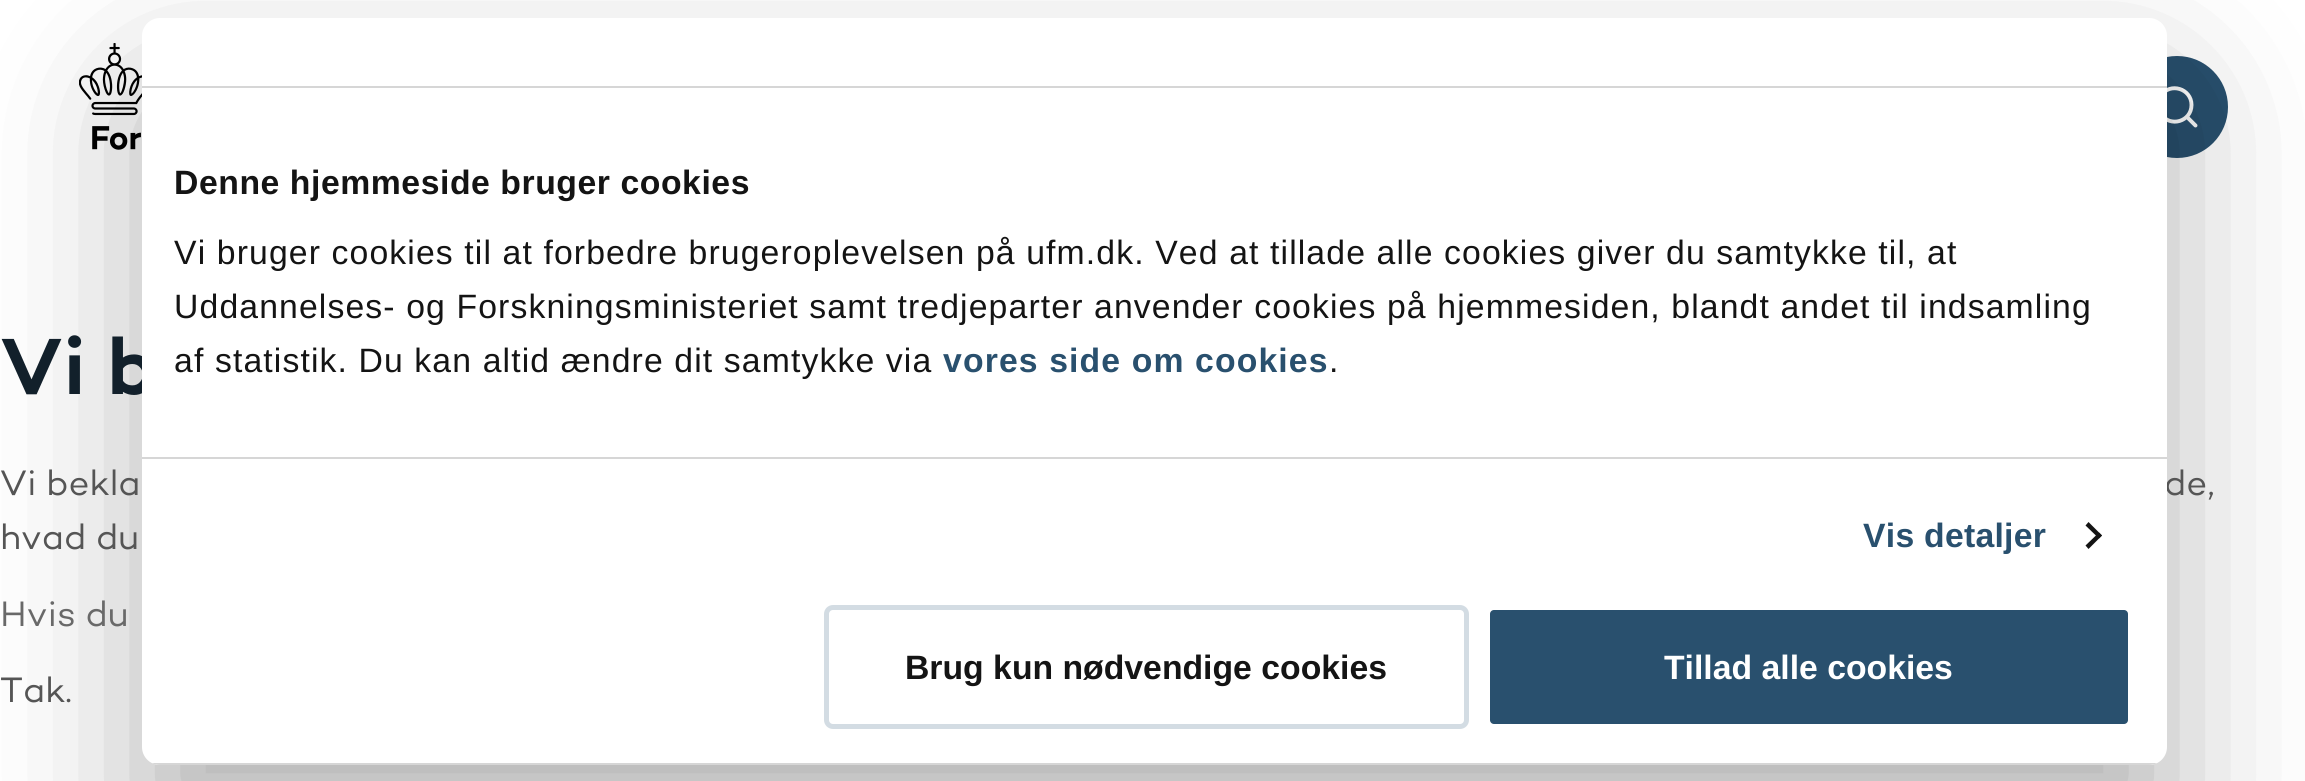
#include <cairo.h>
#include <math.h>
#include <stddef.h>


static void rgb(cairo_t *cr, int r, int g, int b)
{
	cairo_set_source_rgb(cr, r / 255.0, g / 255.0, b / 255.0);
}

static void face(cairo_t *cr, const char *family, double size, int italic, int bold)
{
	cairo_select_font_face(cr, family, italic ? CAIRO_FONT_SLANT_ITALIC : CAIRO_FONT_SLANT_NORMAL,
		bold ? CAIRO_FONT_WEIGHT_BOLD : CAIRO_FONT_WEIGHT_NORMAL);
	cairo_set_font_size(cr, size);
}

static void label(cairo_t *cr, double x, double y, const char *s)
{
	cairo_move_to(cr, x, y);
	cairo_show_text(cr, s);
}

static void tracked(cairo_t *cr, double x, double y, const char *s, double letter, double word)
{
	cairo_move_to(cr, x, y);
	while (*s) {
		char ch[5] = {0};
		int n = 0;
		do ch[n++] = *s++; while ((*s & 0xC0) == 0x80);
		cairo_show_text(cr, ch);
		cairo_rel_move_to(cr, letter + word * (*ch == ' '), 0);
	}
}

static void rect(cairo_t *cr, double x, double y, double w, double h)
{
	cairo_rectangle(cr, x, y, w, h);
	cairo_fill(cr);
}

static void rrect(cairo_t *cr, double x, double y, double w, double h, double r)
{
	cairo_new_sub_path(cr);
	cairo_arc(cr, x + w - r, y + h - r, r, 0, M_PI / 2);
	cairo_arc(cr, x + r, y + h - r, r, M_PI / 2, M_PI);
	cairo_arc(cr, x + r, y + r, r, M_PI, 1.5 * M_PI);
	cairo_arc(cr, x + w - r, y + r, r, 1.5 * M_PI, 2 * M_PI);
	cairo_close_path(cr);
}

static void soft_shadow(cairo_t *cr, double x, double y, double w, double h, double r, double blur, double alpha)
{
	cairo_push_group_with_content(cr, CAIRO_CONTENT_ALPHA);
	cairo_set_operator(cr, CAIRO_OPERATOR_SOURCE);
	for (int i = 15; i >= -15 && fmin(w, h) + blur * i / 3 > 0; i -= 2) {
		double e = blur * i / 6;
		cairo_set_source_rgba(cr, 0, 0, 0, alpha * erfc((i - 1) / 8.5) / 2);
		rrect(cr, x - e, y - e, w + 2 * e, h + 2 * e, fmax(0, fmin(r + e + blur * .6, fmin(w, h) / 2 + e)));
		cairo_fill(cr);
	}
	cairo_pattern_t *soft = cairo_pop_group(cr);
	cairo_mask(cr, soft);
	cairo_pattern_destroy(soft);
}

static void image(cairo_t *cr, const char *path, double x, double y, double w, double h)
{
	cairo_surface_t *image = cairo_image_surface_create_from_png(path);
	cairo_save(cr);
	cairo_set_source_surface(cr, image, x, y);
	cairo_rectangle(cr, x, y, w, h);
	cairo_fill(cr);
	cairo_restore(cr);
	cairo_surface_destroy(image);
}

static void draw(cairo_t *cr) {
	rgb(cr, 255, 255, 255);
	cairo_paint(cr);
	image(cr, "image0.png", 79, 43, 63, 107);
	rgb(cr, 40, 80, 110);
	cairo_arc(cr, 2177, 107, 51, 0, 2 * M_PI);
	cairo_fill(cr);
	cairo_new_path(cr);
	cairo_move_to(cr, 2195.5, 125.5);
	cairo_line_to(cr, 2187, 117);
	cairo_move_to(cr, 2191.5, 105);
	cairo_curve_to(cr, 2191.5, 121.5, 2170, 128, 2161, 114);
	cairo_curve_to(cr, 2159, 111.5, 2158, 108, 2158, 105);
	cairo_curve_to(cr, 2158, 101.5, 2159, 98.5, 2161, 95.5);
	cairo_curve_to(cr, 2170, 82, 2191.5, 88.5, 2191.5, 105);
	cairo_close_path(cr);
	rgb(cr, 255, 255, 255);
	cairo_set_line_width(cr, 3.9);
	cairo_set_line_cap(cr, CAIRO_LINE_CAP_ROUND);
	cairo_stroke(cr);
	rgb(cr, 0, 0, 0);
	soft_shadow(cr, 142, 90, 2025, 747, 18, 76.5, 0.3);
	face(cr, "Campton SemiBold", 81, 0, 0);
	rgb(cr, 18, 32, 43);
	label(cr, 0, 394, "Vi b");
	face(cr, "Campton", 36, 0, 0);
	rgb(cr, 85, 85, 85);
	label(cr, 2164, 495, "de,");
	rgb(cr, 255, 255, 255);
	rrect(cr, 142, 18, 2025, 747, 18);
	cairo_fill(cr);
	rgb(cr, 214, 214, 214);
	rect(cr, 142, 86, 2025, 2);
	rect(cr, 142, 457, 2025, 2);
	face(cr, "Liberation Sans", 33.75, 0, 1);
	rgb(cr, 20, 20, 20);
	tracked(cr, 174, 194, "Denne hjemmeside bruger cookies", 0.55, 0);
	face(cr, "Liberation Sans", 33.75, 0, 0);
	tracked(cr, 174, 264, "Vi bruger cookies til at forbedre brugeroplevelsen på ufm.dk. Ved at tillade alle cookies giver du samtykke til, at", 1.12, 0);
	tracked(cr, 174, 318, "Uddannelses- og Forskningsministeriet samt tredjeparter anvender cookies på hjemmesiden, blandt andet til indsamling", 1.12, 0);
	tracked(cr, 174, 372, "af statistik. Du kan altid ændre dit samtykke via", 1.12, 0);
	face(cr, "Liberation Sans", 33.75, 0, 1);
	rgb(cr, 41, 80, 110);
	tracked(cr, 943, 372, "vores side om cookies", 1.12, 0);
	face(cr, "Liberation Sans", 33.75, 0, 0);
	rgb(cr, 20, 20, 20);
	tracked(cr, 1329, 372, ".", 1.12, 0);
	face(cr, "Liberation Sans", 33.75, 0, 1);
	rgb(cr, 41, 80, 110);
	tracked(cr, 1863, 547, "Vis detaljer", 0.25, 0);
	rgb(cr, 20, 20, 20);
	cairo_new_path(cr);
	cairo_move_to(cr, 2088.5, 522);
	cairo_line_to(cr, 2102, 535.5);
	cairo_line_to(cr, 2099, 538.5);
	cairo_line_to(cr, 2085.5, 525.5);
	cairo_close_path(cr);
	cairo_fill(cr);
	cairo_new_path(cr);
	cairo_move_to(cr, 2099, 532.5);
	cairo_line_to(cr, 2102, 535.5);
	cairo_line_to(cr, 2088.5, 549);
	cairo_line_to(cr, 2085.5, 545.5);
	cairo_close_path(cr);
	cairo_fill(cr);
	cairo_save(cr);
	rrect(cr, 142, 18, 2025, 747, 18);
	cairo_clip(cr);
	rgb(cr, 214, 214, 214);
	rect(cr, 152, 763, 2005, 2);
	cairo_restore(cr);
	rrect(cr, 826.5, 607.5, 640, 119, 6.5);
	rgb(cr, 211, 220, 227);
	cairo_set_line_width(cr, 5);
	cairo_set_line_cap(cr, CAIRO_LINE_CAP_BUTT);
	cairo_stroke(cr);
	rgb(cr, 20, 20, 20);
	label(cr, 905, 679, "Brug kun nødvendige cookies");
	rgb(cr, 41, 80, 110);
	rrect(cr, 1487.5, 607.5, 643, 119, 6.5);
	cairo_fill_preserve(cr);
	rgb(cr, 255, 255, 255);
	cairo_stroke(cr);
	label(cr, 1664, 679, "Tillad alle cookies");
	face(cr, "Campton", 36, 0, 0);
	rgb(cr, 85, 85, 85);
	label(cr, 0, 495, "Vi bekla");
	label(cr, 0, 549, "hvad du");
	rgb(cr, 105, 105, 105);
	label(cr, 0, 626, "Hvis du");
	rgb(cr, 85, 85, 85);
	label(cr, 0, 702, "Tak.");
}

int main(void) {
	cairo_surface_t *surface = cairo_image_surface_create(CAIRO_FORMAT_RGB24, 2305, 781);
	cairo_t *cr = cairo_create(surface);
	cairo_font_options_t *options = cairo_font_options_create();
	cairo_font_options_set_hint_metrics(options, CAIRO_HINT_METRICS_OFF);
	cairo_font_options_set_hint_style(options, CAIRO_HINT_STYLE_NONE);
	cairo_set_font_options(cr, options);
	cairo_set_miter_limit(cr, 4);
	draw(cr);
	cairo_surface_write_to_png(surface, "render.png");
	cairo_font_options_destroy(options);
	cairo_destroy(cr);
	cairo_surface_destroy(surface);
	return 0;
}
